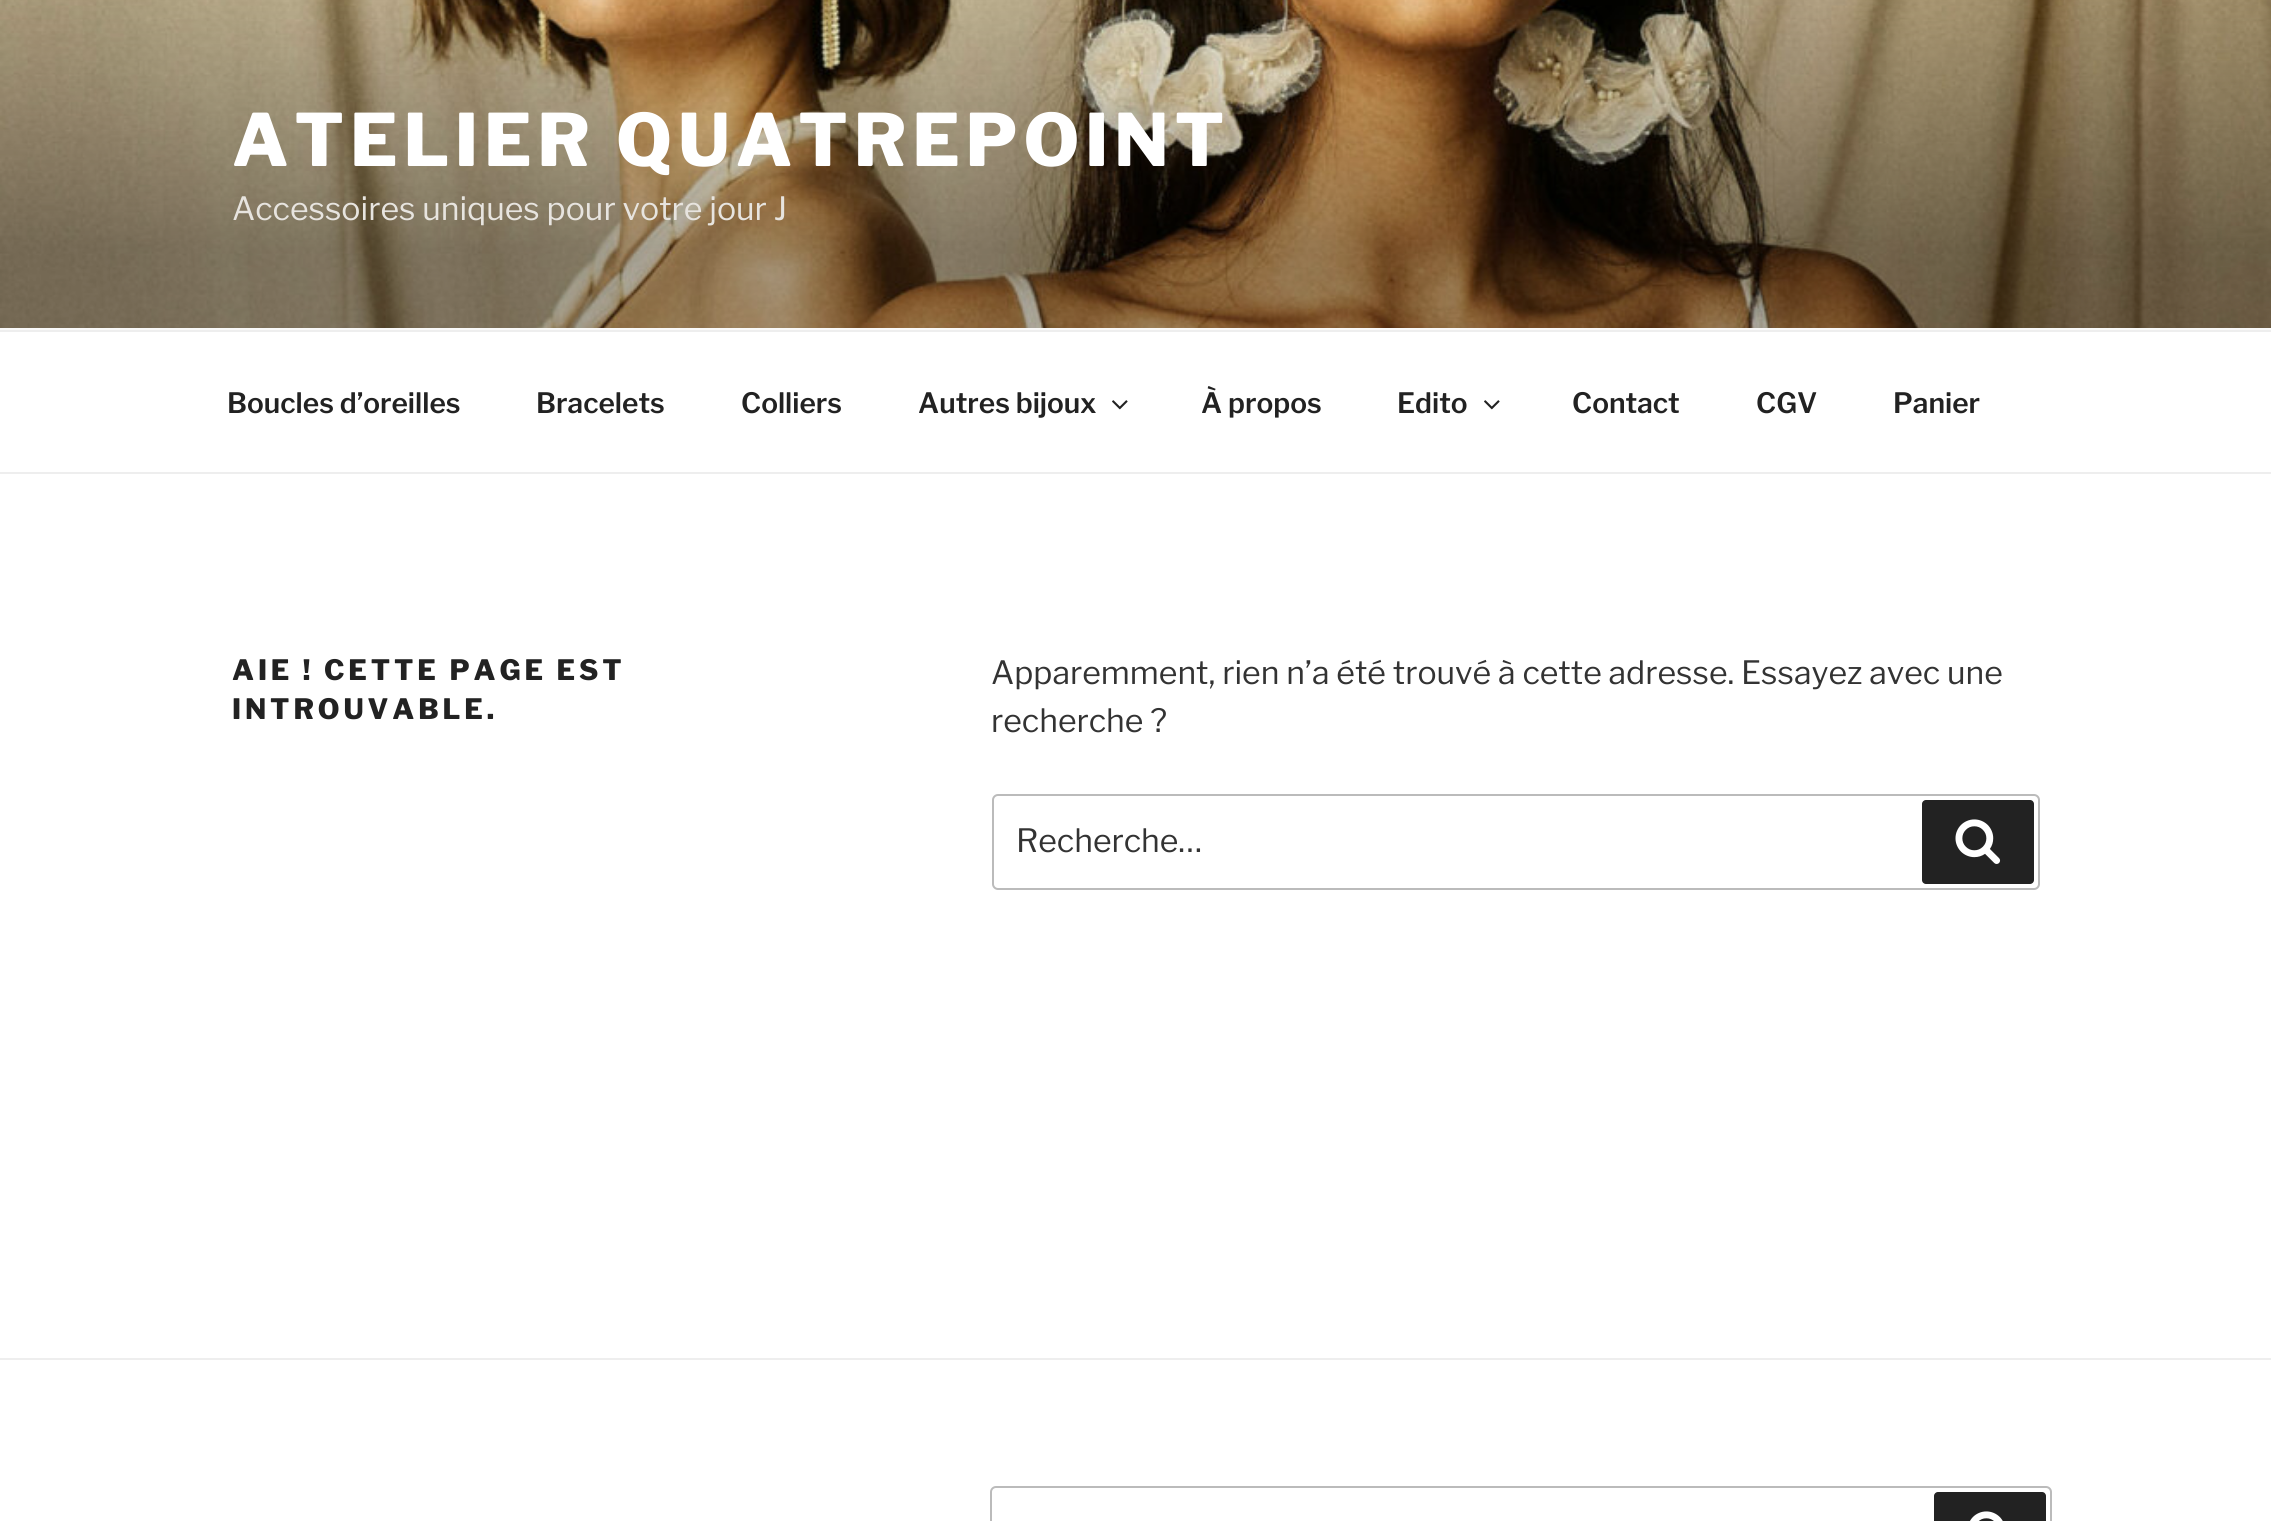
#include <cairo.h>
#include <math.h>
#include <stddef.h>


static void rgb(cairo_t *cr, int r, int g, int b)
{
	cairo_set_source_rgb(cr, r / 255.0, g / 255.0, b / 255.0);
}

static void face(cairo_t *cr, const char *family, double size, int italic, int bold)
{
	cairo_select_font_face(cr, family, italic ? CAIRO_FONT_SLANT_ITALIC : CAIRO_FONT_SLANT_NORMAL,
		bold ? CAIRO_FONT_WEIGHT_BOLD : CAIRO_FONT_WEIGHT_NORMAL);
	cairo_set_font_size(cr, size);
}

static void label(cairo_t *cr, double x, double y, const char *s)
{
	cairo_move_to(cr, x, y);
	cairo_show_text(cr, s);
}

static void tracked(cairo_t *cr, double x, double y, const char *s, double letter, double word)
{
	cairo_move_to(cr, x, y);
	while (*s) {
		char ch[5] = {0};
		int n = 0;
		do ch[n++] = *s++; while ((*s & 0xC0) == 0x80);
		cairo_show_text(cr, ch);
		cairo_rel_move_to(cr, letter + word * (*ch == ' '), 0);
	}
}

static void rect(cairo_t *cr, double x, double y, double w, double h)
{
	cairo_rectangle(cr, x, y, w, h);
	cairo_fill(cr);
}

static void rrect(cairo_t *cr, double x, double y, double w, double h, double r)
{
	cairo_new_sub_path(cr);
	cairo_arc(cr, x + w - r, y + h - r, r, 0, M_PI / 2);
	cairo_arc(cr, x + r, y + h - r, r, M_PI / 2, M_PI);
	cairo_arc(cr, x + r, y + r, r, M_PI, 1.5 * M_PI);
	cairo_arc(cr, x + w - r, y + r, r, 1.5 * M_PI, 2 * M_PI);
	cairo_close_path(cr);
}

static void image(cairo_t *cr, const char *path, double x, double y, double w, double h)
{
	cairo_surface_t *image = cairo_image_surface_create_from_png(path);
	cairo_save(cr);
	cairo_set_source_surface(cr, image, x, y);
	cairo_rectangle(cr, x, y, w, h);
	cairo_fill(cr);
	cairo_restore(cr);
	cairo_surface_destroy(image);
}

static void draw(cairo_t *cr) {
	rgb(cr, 255, 255, 255);
	cairo_paint(cr);
	rgb(cr, 250, 250, 250);
	rect(cr, 0, 328, 2271, 2);
	image(cr, "image0.png", 0, 0, 2271, 328);
	face(cr, "Libre Franklin ExtraBold", 72, 0, 0);
	rgb(cr, 255, 255, 255);
	tracked(cr, 232, 166, "ATELIER QUATREPOINT", 5.75, 0);
	face(cr, "Libre Franklin", 32, 0, 0);
	rgb(cr, 231, 228, 223);
	label(cr, 232, 220, "Accessoires uniques pour votre jour J");
	rgb(cr, 238, 238, 238);
	rect(cr, 0, 330, 2271, 2);
	rect(cr, 0, 472, 2271, 2);
	face(cr, "Libre Franklin SemiBold", 28, 0, 0);
	rgb(cr, 34, 34, 34);
	label(cr, 227, 413, "Boucles d’oreilles");
	label(cr, 536, 413, "Bracelets");
	label(cr, 741, 413, "Colliers");
	label(cr, 918, 413, "Autres bijoux");
	image(cr, "image1.png", 1112, 400, 16, 10);
	label(cr, 1201, 413, "À propos");
	label(cr, 1397, 413, "Edito");
	image(cr, "image1.png", 1484, 400, 16, 10);
	label(cr, 1572, 413, "Contact");
	label(cr, 1756, 413, "CGV");
	label(cr, 1893, 413, "Panier");
	face(cr, "Libre Franklin ExtraBold", 28, 0, 0);
	tracked(cr, 232, 680, "AIE ! CETTE PAGE EST", 3.9, 0);
	tracked(cr, 232, 719, "INTROUVABLE.", 3.9, 0);
	face(cr, "Libre Franklin", 32, 0, 0);
	rgb(cr, 51, 51, 51);
	label(cr, 991, 684, "Apparemment, rien n’a été trouvé à cette adresse. Essayez avec une");
	label(cr, 991, 732, "recherche ?");
	rrect(cr, 993, 795, 1046, 94, 5);
	rgb(cr, 187, 187, 187);
	cairo_stroke(cr);
	rgb(cr, 51, 51, 51);
	label(cr, 1016, 852, "Recherche…");
	rgb(cr, 34, 34, 34);
	rrect(cr, 1922, 800, 112, 84, 4);
	cairo_fill(cr);
	image(cr, "image2.png", 1955, 819, 46, 45);
	rgb(cr, 238, 238, 238);
	rect(cr, 0, 1358, 2271, 2);
	rrect(cr, 991, 1487, 1060, 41, 5);
	rgb(cr, 187, 187, 187);
	cairo_stroke(cr);
	rgb(cr, 34, 34, 34);
	rrect(cr, 1934, 1492, 112, 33, 4);
	cairo_fill(cr);
	image(cr, "image3.png", 1970, 1511, 33, 10);
}

int main(void) {
	cairo_surface_t *surface = cairo_image_surface_create(CAIRO_FORMAT_RGB24, 2271, 1521);
	cairo_t *cr = cairo_create(surface);
	cairo_font_options_t *options = cairo_font_options_create();
	cairo_font_options_set_hint_metrics(options, CAIRO_HINT_METRICS_OFF);
	cairo_font_options_set_hint_style(options, CAIRO_HINT_STYLE_NONE);
	cairo_set_font_options(cr, options);
	cairo_set_miter_limit(cr, 4);
	draw(cr);
	cairo_surface_write_to_png(surface, "render.png");
	cairo_font_options_destroy(options);
	cairo_destroy(cr);
	cairo_surface_destroy(surface);
	return 0;
}
